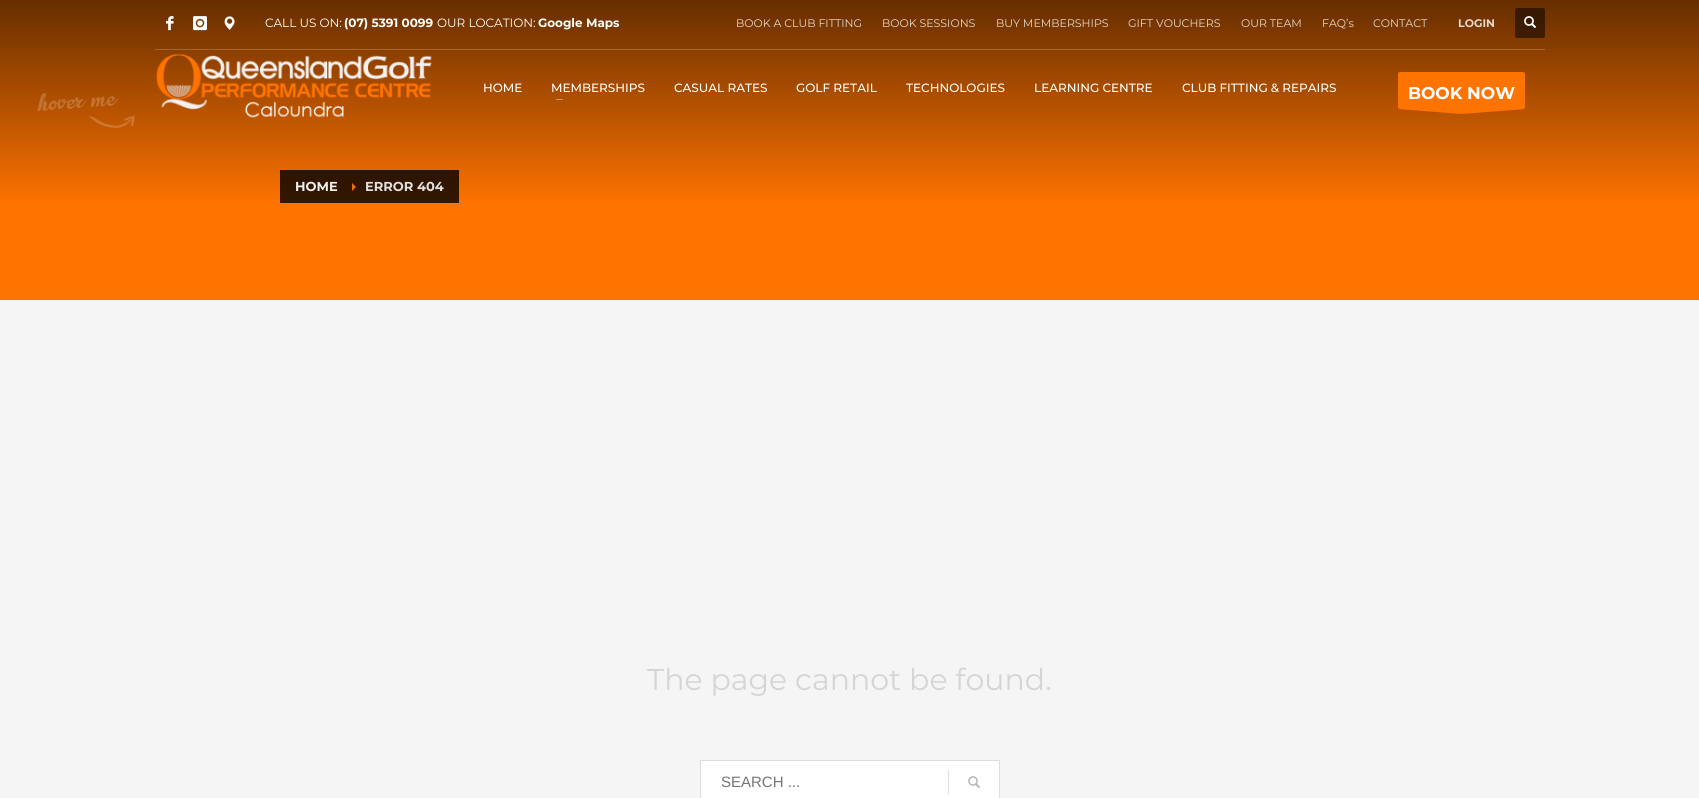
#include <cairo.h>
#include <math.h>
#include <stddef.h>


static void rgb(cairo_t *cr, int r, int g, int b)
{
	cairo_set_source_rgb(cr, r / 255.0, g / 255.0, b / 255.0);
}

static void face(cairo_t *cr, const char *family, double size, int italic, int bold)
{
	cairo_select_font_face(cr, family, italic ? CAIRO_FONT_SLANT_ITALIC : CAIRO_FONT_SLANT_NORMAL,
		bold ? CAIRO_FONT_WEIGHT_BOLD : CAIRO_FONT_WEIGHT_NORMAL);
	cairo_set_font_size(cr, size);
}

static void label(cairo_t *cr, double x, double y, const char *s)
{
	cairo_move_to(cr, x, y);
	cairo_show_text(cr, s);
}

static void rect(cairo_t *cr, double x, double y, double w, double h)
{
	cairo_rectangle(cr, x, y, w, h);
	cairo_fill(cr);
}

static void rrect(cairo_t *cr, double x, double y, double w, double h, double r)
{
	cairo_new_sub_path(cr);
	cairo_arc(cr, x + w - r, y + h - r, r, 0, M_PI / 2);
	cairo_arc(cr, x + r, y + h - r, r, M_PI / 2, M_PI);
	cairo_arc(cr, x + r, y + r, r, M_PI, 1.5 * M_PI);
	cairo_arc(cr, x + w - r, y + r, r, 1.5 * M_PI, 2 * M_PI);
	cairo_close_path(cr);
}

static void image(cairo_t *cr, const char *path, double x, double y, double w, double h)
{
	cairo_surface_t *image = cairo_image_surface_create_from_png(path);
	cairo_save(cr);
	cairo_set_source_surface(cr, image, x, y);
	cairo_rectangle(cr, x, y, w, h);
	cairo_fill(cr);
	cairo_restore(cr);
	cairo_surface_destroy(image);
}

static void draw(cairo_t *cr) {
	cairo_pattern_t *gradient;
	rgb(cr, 245, 245, 245);
	cairo_paint(cr);
	rgb(cr, 255, 115, 0);
	rect(cr, 0, 0, 1699, 300);
	rgb(cr, 51, 23, 0);
	rect(cr, 280, 170, 179, 33);
	face(cr, "Montserrat", 13, 0, 1);
	rgb(cr, 255, 255, 255);
	label(cr, 295, 191, "HOME");
	rgb(cr, 255, 115, 0);
	cairo_new_path(cr);
	cairo_move_to(cr, 352, 191);
	cairo_line_to(cr, 352, 183);
	cairo_line_to(cr, 356, 187);
	cairo_close_path(cr);
	cairo_fill(cr);
	rgb(cr, 238, 238, 238);
	label(cr, 365, 191, "ERROR 404");
	gradient = cairo_pattern_create_linear(850, 0, 850, 207);
	cairo_pattern_add_color_stop_rgba(gradient, 0, 0, 0, 0, 0.6);
	cairo_pattern_add_color_stop_rgba(gradient, 1, 0, 0, 0, 0);
	cairo_set_source(cr, gradient);
	cairo_pattern_destroy(gradient);
	rect(cr, 0, 0, 1699, 200);
	image(cr, "image0.png", 166, 16, 8, 15);
	image(cr, "image1.png", 193, 16, 14, 15);
	image(cr, "image2.png", 224, 16, 11, 14);
	face(cr, "Montserrat", 12, 0, 0);
	rgb(cr, 255, 255, 255);
	label(cr, 265, 27, "CALL US ON:");
	face(cr, "Montserrat", 12, 0, 1);
	label(cr, 344, 27, "(07) 5391 0099");
	face(cr, "Montserrat", 12, 0, 0);
	label(cr, 437, 27, "OUR LOCATION:");
	face(cr, "Montserrat", 12, 0, 1);
	label(cr, 538, 27, "Google Maps");
	face(cr, "Montserrat", 11, 0, 0);
	rgb(cr, 228, 215, 204);
	label(cr, 736, 27, "BOOK A CLUB FITTING");
	label(cr, 882, 27, "BOOK SESSIONS");
	label(cr, 996, 27, "BUY MEMBERSHIPS");
	label(cr, 1128, 27, "GIFT VOUCHERS");
	label(cr, 1241, 27, "OUR TEAM");
	label(cr, 1322, 27, "FAQ’s");
	label(cr, 1373, 27, "CONTACT");
	face(cr, "Montserrat", 11, 0, 1);
	label(cr, 1458, 27, "LOGIN");
	cairo_set_source_rgba(cr, 0, 0, 0, 0.5);
	rrect(cr, 1515, 8, 30, 30, 2);
	cairo_fill(cr);
	image(cr, "image3.png", 1524, 16, 12, 12);
	rgb(cr, 162, 101, 51);
	rect(cr, 155, 49, 1390, 1);
	image(cr, "image4.png", 37, 93, 98, 35);
	image(cr, "image5.png", 156, 54, 276, 64);
	face(cr, "Montserrat Medium", 12, 0, 0);
	rgb(cr, 255, 255, 255);
	label(cr, 483, 92, "HOME");
	label(cr, 551, 92, "MEMBERSHIPS");
	rgb(cr, 208, 150, 102);
	rect(cr, 556, 99, 7, 1);
	rgb(cr, 255, 255, 255);
	label(cr, 674, 92, "CASUAL RATES");
	label(cr, 796, 92, "GOLF RETAIL");
	label(cr, 906, 92, "TECHNOLOGIES");
	label(cr, 1034, 92, "LEARNING CENTRE");
	label(cr, 1182, 92, "CLUB FITTING & REPAIRS");
	rgb(cr, 255, 115, 0);
	rrect(cr, 1398, 72, 127, 37, 2);
	cairo_fill(cr);
	face(cr, "Montserrat", 17, 0, 1);
	rgb(cr, 255, 255, 255);
	label(cr, 1408, 99, "BOOK NOW");
	rgb(cr, 255, 115, 0);
	cairo_set_fill_rule(cr, CAIRO_FILL_RULE_EVEN_ODD);
	cairo_new_path(cr);
	cairo_move_to(cr, 1525, 109);
	cairo_line_to(cr, 1461, 114);
	cairo_line_to(cr, 1398, 109);
	cairo_close_path(cr);
	cairo_fill(cr);
	face(cr, "Montserrat", 30, 0, 0);
	rgb(cr, 213, 213, 213);
	label(cr, 647, 690, "The page cannot be found.");
	rgb(cr, 255, 255, 255);
	cairo_rectangle(cr, 700.5, 760.5, 299, 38);
	cairo_fill_preserve(cr);
	rgb(cr, 221, 221, 221);
	cairo_set_line_width(cr, 1);
	cairo_stroke(cr);
	face(cr, "Liberation Sans", 15, 0, 0);
	rgb(cr, 117, 117, 117);
	label(cr, 721, 787, "SEARCH ...");
	rgb(cr, 221, 221, 221);
	rect(cr, 948, 770, 1, 24);
	image(cr, "image6.png", 968, 776, 12, 12);
}

int main(void) {
	cairo_surface_t *surface = cairo_image_surface_create(CAIRO_FORMAT_RGB24, 1699, 798);
	cairo_t *cr = cairo_create(surface);
	cairo_font_options_t *options = cairo_font_options_create();
	cairo_font_options_set_hint_metrics(options, CAIRO_HINT_METRICS_OFF);
	cairo_font_options_set_hint_style(options, CAIRO_HINT_STYLE_NONE);
	cairo_set_font_options(cr, options);
	cairo_set_miter_limit(cr, 4);
	draw(cr);
	cairo_surface_write_to_png(surface, "render.png");
	cairo_font_options_destroy(options);
	cairo_destroy(cr);
	cairo_surface_destroy(surface);
	return 0;
}
